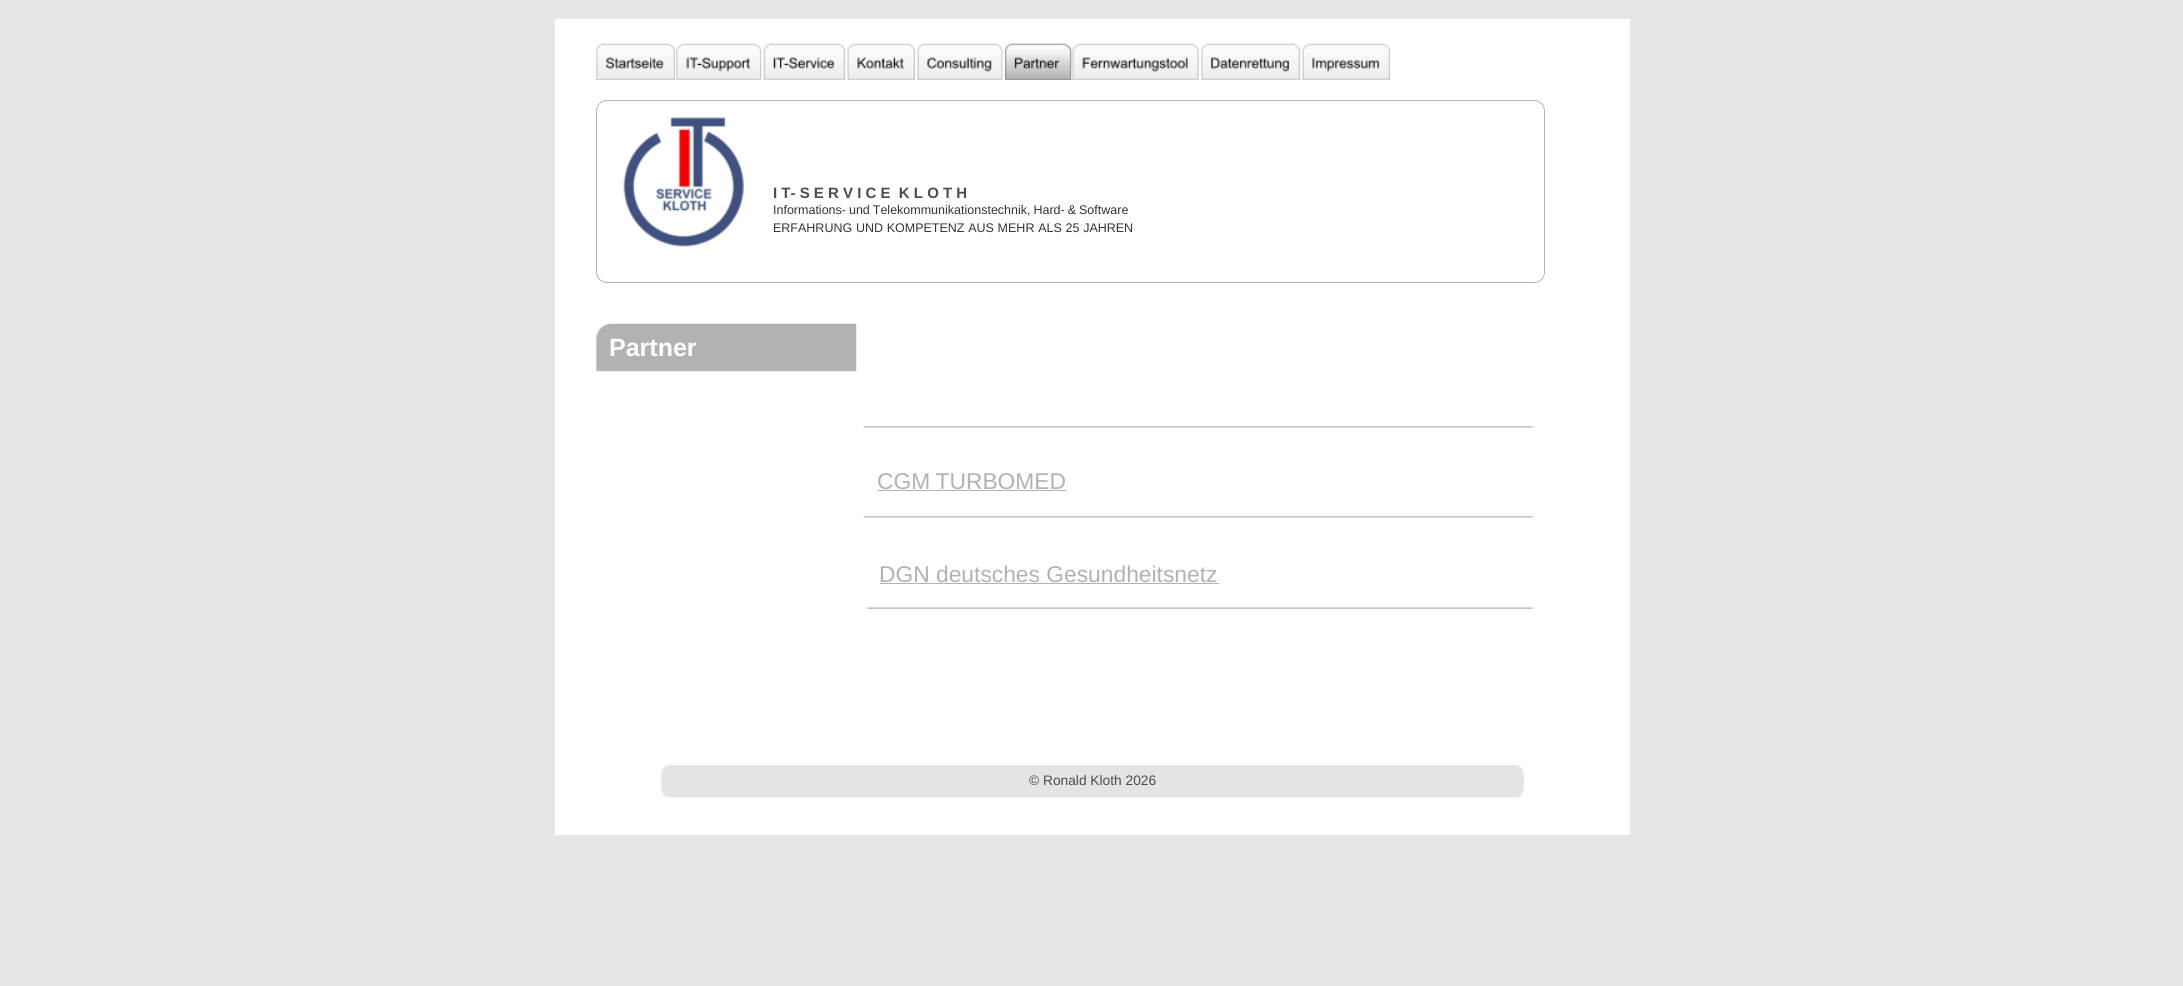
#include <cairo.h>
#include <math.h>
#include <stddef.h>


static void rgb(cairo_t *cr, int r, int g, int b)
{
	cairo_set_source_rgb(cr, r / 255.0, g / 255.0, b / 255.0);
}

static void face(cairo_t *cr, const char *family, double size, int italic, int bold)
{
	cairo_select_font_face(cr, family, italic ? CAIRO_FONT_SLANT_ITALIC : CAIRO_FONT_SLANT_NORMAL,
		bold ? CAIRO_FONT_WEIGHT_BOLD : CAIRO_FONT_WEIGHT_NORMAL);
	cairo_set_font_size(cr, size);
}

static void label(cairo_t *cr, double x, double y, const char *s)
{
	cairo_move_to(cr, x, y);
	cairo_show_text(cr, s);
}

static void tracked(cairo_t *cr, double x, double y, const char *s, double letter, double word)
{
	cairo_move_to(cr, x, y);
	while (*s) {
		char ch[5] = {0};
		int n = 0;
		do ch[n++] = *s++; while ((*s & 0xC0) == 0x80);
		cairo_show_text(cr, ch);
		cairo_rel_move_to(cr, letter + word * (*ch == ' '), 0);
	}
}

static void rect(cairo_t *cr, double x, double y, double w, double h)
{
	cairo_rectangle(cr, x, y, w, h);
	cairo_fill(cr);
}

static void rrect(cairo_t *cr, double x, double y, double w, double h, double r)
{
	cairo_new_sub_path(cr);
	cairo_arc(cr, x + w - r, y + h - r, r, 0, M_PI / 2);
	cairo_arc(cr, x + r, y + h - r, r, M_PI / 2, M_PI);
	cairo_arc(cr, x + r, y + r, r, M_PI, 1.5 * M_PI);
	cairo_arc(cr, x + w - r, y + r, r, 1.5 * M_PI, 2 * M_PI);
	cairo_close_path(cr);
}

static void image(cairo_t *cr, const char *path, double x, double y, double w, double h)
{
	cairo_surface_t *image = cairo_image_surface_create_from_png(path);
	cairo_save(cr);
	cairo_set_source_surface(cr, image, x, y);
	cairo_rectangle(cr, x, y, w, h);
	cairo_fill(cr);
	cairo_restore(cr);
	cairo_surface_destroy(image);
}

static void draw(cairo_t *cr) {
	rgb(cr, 230, 230, 230);
	cairo_paint(cr);
	rgb(cr, 255, 255, 255);
	rect(cr, 555, 19, 1075, 816);
	image(cr, "image0.png", 596, 43, 79, 37);
	image(cr, "image1.png", 676, 43, 86, 37);
	image(cr, "image2.png", 763, 43, 83, 37);
	image(cr, "image3.png", 847, 43, 68, 37);
	image(cr, "image4.png", 917, 43, 86, 37);
	image(cr, "image6.png", 1005, 43, 67, 37);
	image(cr, "image5.png", 1004, 43, 68, 37);
	image(cr, "image7.png", 1072, 43, 127, 37);
	image(cr, "image8.png", 1201, 43, 100, 37);
	image(cr, "image9.png", 1302, 43, 88, 37);
	image(cr, "image10.png", 623, 117, 121, 130);
	rrect(cr, 596.5, 100.5, 948, 182, 10.5);
	rgb(cr, 178, 178, 178);
	cairo_set_line_width(cr, 1);
	cairo_stroke(cr);
	face(cr, "Liberation Sans", 15, 0, 1);
	rgb(cr, 76, 76, 76);
	label(cr, 773, 198, "I T- S E R V I C E  K L O T H");
	face(cr, "Liberation Sans", 12.5, 0, 0);
	rgb(cr, 51, 51, 51);
	tracked(cr, 773, 214, "Informations- und Telekommunikationstechnik, Hard- & Software", 0, -0.5);
	tracked(cr, 773, 232, "ERFAHRUNG UND KOMPETENZ AUS MEHR ALS 25 JAHREN", 0, 0.25);
	image(cr, "image11.png", 596, 323, 261, 49);
	face(cr, "Liberation Sans", 25, 0, 1);
	rgb(cr, 255, 255, 255);
	label(cr, 609, 356, "Partner");
	image(cr, "image12.png", 863, 426, 671, 2);
	face(cr, "Liberation Sans", 22.8, 0, 0);
	rgb(cr, 178, 178, 178);
	tracked(cr, 877, 489, "CGM TURBOMED", 0, -1);
	rect(cr, 878, 490, 188, 1);
	image(cr, "image13.png", 863, 516, 671, 2);
	label(cr, 879, 582, "DGN deutsches Gesundheitsnetz");
	rect(cr, 880, 583, 339, 1);
	image(cr, "image14.png", 866, 607, 668, 2);
	image(cr, "image15.png", 661, 765, 863, 33);
	face(cr, "Liberation Sans", 13.75, 0, 0);
	rgb(cr, 76, 76, 76);
	label(cr, 1029, 785, "© Ronald Kloth 2026");
}

int main(void) {
	cairo_surface_t *surface = cairo_image_surface_create(CAIRO_FORMAT_RGB24, 2183, 986);
	cairo_t *cr = cairo_create(surface);
	cairo_font_options_t *options = cairo_font_options_create();
	cairo_font_options_set_hint_metrics(options, CAIRO_HINT_METRICS_OFF);
	cairo_font_options_set_hint_style(options, CAIRO_HINT_STYLE_NONE);
	cairo_set_font_options(cr, options);
	cairo_set_miter_limit(cr, 4);
	draw(cr);
	cairo_surface_write_to_png(surface, "render.png");
	cairo_font_options_destroy(options);
	cairo_destroy(cr);
	cairo_surface_destroy(surface);
	return 0;
}
